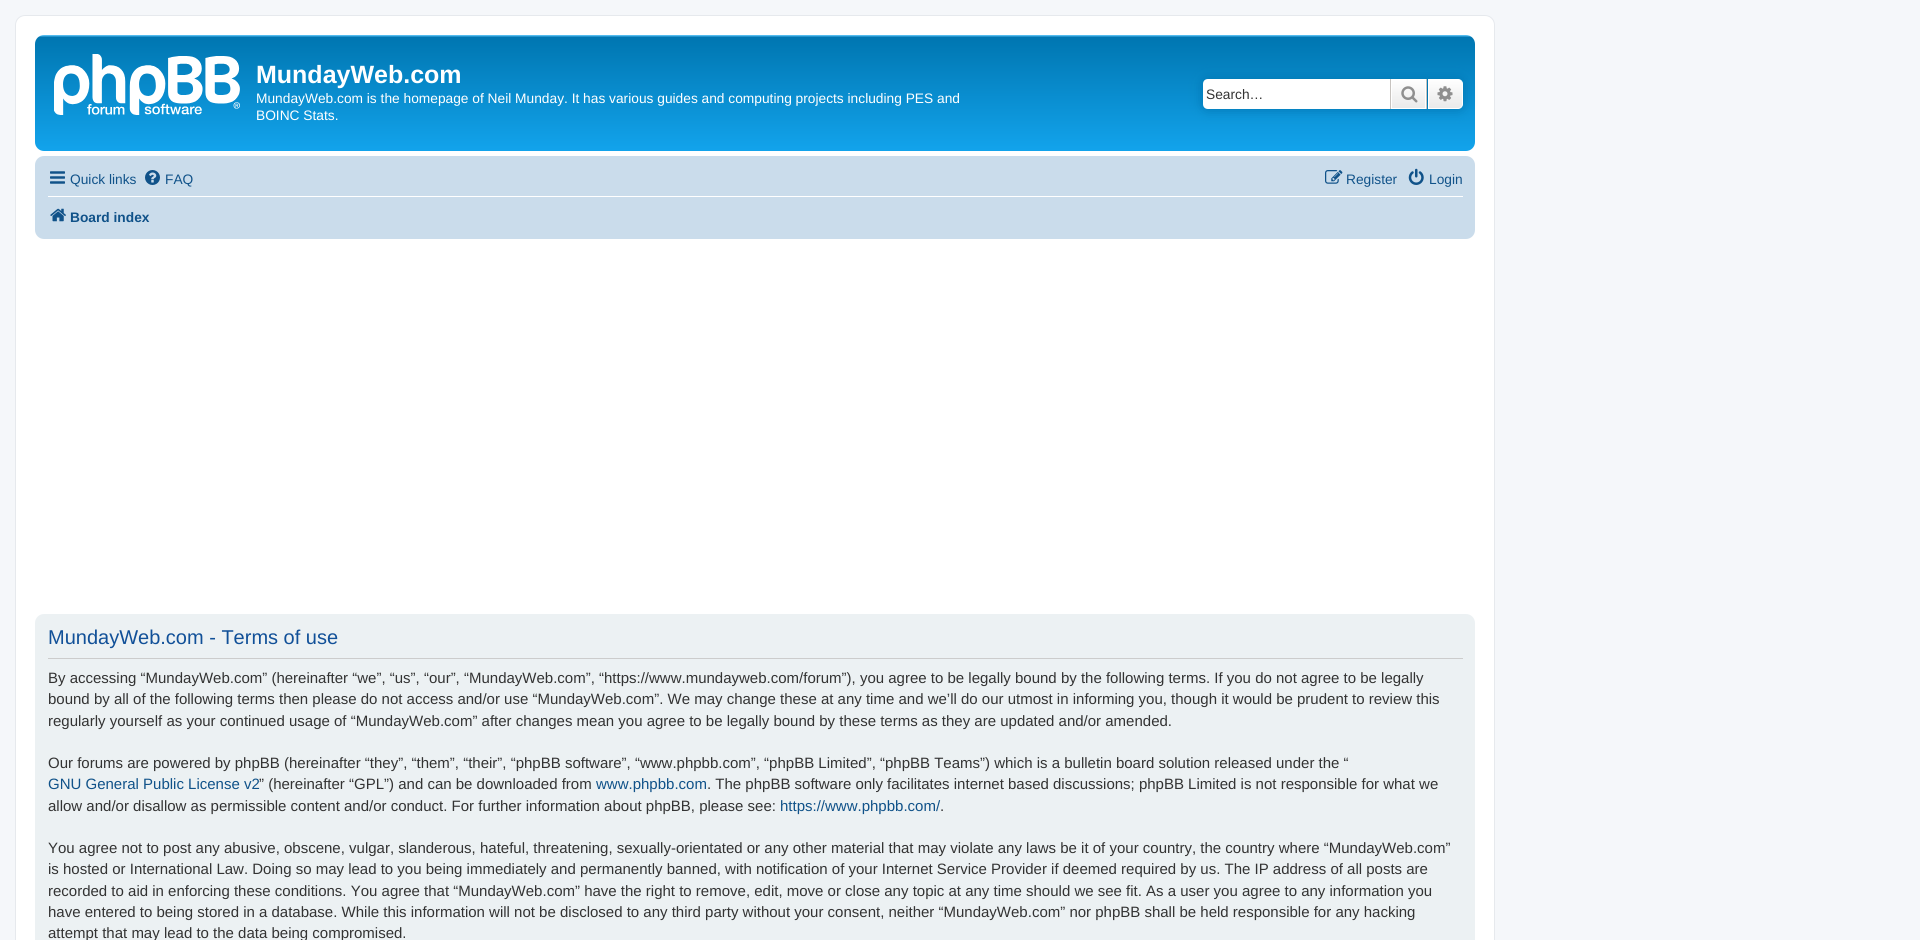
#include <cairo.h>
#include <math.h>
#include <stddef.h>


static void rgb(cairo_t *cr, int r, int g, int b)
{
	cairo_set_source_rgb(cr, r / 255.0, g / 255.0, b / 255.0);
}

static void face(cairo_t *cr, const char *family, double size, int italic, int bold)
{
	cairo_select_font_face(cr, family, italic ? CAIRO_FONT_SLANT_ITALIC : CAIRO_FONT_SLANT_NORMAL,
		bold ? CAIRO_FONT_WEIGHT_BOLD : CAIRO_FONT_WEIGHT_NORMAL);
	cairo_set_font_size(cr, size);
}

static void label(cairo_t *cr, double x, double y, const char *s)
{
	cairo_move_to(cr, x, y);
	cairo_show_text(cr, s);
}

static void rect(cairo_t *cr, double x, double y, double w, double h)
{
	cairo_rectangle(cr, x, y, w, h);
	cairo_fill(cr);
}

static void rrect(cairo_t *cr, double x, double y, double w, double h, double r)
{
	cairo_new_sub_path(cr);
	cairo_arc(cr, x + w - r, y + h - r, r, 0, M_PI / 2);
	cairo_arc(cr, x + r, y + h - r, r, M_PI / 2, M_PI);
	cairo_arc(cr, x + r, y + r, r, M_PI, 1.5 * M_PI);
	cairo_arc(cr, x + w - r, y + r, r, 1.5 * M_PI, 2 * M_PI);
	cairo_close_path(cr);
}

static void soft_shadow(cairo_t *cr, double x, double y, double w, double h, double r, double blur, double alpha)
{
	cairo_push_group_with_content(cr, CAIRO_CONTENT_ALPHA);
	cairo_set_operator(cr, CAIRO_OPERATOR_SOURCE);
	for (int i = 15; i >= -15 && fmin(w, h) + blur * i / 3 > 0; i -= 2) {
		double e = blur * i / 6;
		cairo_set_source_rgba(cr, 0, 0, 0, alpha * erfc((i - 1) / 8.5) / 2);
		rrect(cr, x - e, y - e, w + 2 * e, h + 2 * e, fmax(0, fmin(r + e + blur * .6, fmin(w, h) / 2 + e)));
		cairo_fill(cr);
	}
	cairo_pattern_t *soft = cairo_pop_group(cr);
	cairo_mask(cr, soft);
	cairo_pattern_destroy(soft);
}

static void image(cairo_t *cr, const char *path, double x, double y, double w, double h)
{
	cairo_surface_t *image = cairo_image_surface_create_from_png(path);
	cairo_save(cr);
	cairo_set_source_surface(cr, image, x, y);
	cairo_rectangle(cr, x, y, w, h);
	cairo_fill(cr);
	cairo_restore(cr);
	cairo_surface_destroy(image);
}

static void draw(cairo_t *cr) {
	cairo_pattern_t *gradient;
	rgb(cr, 245, 247, 250);
	cairo_paint(cr);
	rgb(cr, 255, 255, 255);
	rrect(cr, 15.5, 15.5, 1479, 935, 9.5);
	cairo_fill_preserve(cr);
	rgb(cr, 230, 233, 237);
	cairo_set_line_width(cr, 1);
	cairo_stroke(cr);
	gradient = cairo_pattern_create_linear(755, 35, 755, 151);
	cairo_pattern_add_color_stop_rgba(gradient, 0, 0.416, 0.808, 1, 1);
	cairo_pattern_add_color_stop_rgba(gradient, 0.02, 0, 0.463, 0.694, 1);
	cairo_pattern_add_color_stop_rgba(gradient, 0.99, 0.071, 0.639, 0.922, 1);
	cairo_pattern_add_color_stop_rgba(gradient, 1, 0.071, 0.639, 0.922, 1);
	cairo_set_source(cr, gradient);
	cairo_pattern_destroy(gradient);
	rrect(cr, 35, 35, 1440, 116, 9);
	cairo_fill(cr);
	image(cr, "image0.png", 54, 54, 186, 61);
	face(cr, "Liberation Sans", 25, 0, 1);
	rgb(cr, 255, 255, 255);
	label(cr, 256, 83, "MundayWeb.com");
	face(cr, "Liberation Sans", 13.75, 0, 0);
	label(cr, 256, 103, "MundayWeb.com is the homepage of Neil Munday. It has various guides and computing projects including PES and");
	label(cr, 256, 120, "BOINC Stats.");
	rgb(cr, 0, 117, 176);
	soft_shadow(cr, 1203, 79, 260, 30, 5, 6, 1);
	rgb(cr, 255, 255, 255);
	cairo_new_path(cr);
	cairo_move_to(cr, 1208, 79);
	cairo_line_to(cr, 1390, 79);
	cairo_line_to(cr, 1390, 109);
	cairo_line_to(cr, 1208, 109);
	cairo_curve_to(cr, 1205, 109, 1203, 107, 1203, 104);
	cairo_line_to(cr, 1203, 84);
	cairo_curve_to(cr, 1203, 81, 1205, 79, 1208, 79);
	cairo_close_path(cr);
	cairo_fill(cr);
	rgb(cr, 51, 51, 51);
	label(cr, 1206, 99, "Search…");
	gradient = cairo_pattern_create_linear(1409, 79, 1409, 109);
	cairo_pattern_add_color_stop_rgba(gradient, 0, 1, 1, 1, 1);
	cairo_pattern_add_color_stop_rgba(gradient, 1, 0.914, 0.914, 0.914, 1);
	cairo_set_source(cr, gradient);
	cairo_pattern_destroy(gradient);
	rect(cr, 1392, 80, 33, 28);
	cairo_rectangle(cr, 1391.5, 79.5, 34, 29);
	rgb(cr, 255, 255, 255);
	cairo_stroke(cr);
	rgb(cr, 199, 195, 191);
	rect(cr, 1426, 79, 1, 30);
	rect(cr, 1390, 79, 1, 30);
	image(cr, "image1.png", 1401, 86, 17, 17);
	gradient = cairo_pattern_create_linear(1445, 79, 1445, 109);
	cairo_pattern_add_color_stop_rgba(gradient, 0, 1, 1, 1, 1);
	cairo_pattern_add_color_stop_rgba(gradient, 1, 0.914, 0.914, 0.914, 1);
	cairo_set_source(cr, gradient);
	cairo_pattern_destroy(gradient);
	cairo_new_path(cr);
	cairo_move_to(cr, 1428.5, 79.5);
	cairo_line_to(cr, 1458, 79.5);
	cairo_curve_to(cr, 1460.5, 79.5, 1462.5, 81.5, 1462.5, 84);
	cairo_line_to(cr, 1462.5, 104);
	cairo_curve_to(cr, 1462.5, 106.5, 1460.5, 108.5, 1458, 108.5);
	cairo_line_to(cr, 1428.5, 108.5);
	cairo_close_path(cr);
	cairo_fill_preserve(cr);
	rgb(cr, 255, 255, 255);
	cairo_stroke(cr);
	image(cr, "image2.png", 1437, 86, 16, 16);
	rgb(cr, 202, 220, 235);
	rrect(cr, 35, 156, 1440, 83, 9);
	cairo_fill(cr);
	image(cr, "image3.png", 50, 171, 15, 13);
	rgb(cr, 16, 82, 137);
	label(cr, 70, 184, "Quick links");
	image(cr, "image4.png", 145, 170, 15, 15);
	label(cr, 165, 184, "FAQ");
	image(cr, "image5.png", 1325, 170, 18, 14);
	label(cr, 1346, 184, "Register");
	image(cr, "image6.png", 1408, 168, 16, 17);
	label(cr, 1429, 184, "Login");
	rgb(cr, 255, 255, 255);
	rect(cr, 48, 196, 1415, 1);
	image(cr, "image7.png", 50, 208, 16, 14);
	face(cr, "Liberation Sans", 13.75, 0, 1);
	rgb(cr, 16, 82, 137);
	label(cr, 70, 222, "Board index");
	rgb(cr, 236, 241, 243);
	rrect(cr, 35, 614, 1440, 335, 9);
	cairo_fill(cr);
	rgb(cr, 204, 204, 204);
	rect(cr, 48, 658, 1415, 1);
	face(cr, "Liberation Sans", 20, 0, 0);
	rgb(cr, 17, 80, 152);
	label(cr, 48, 644, "MundayWeb.com - Terms of use");
	face(cr, "Liberation Sans", 15, 0, 0);
	rgb(cr, 51, 51, 51);
	label(cr, 48, 683, "By accessing “MundayWeb.com” (hereinafter “we”, “us”, “our”, “MundayWeb.com”, “https://www.mundayweb.com/forum”), you agree to be legally bound by the following terms. If you do not agree to be legally");
	label(cr, 48, 704, "bound by all of the following terms then please do not access and/or use “MundayWeb.com”. We may change these at any time and we’ll do our utmost in informing you, though it would be prudent to review this");
	label(cr, 48, 726, "regularly yourself as your continued usage of “MundayWeb.com” after changes mean you agree to be legally bound by these terms as they are updated and/or amended.");
	label(cr, 48, 768, "Our forums are powered by phpBB (hereinafter “they”, “them”, “their”, “phpBB software”, “www.phpbb.com”, “phpBB Limited”, “phpBB Teams”) which is a bulletin board solution released under the “");
	rgb(cr, 16, 82, 137);
	label(cr, 48, 789, "GNU General Public License v2");
	rgb(cr, 51, 51, 51);
	label(cr, 259, 789, "” (hereinafter “GPL”) and can be downloaded from");
	rgb(cr, 16, 82, 137);
	label(cr, 596, 789, "www.phpbb.com");
	rgb(cr, 51, 51, 51);
	label(cr, 707, 789, ". The phpBB software only facilitates internet based discussions; phpBB Limited is not responsible for what we");
	label(cr, 48, 811, "allow and/or disallow as permissible content and/or conduct. For further information about phpBB, please see:");
	rgb(cr, 16, 82, 137);
	label(cr, 780, 811, "https://www.phpbb.com/");
	rgb(cr, 51, 51, 51);
	label(cr, 940, 811, ".");
	label(cr, 48, 853, "You agree not to post any abusive, obscene, vulgar, slanderous, hateful, threatening, sexually-orientated or any other material that may violate any laws be it of your country, the country where “MundayWeb.com”");
	label(cr, 48, 874, "is hosted or International Law. Doing so may lead to you being immediately and permanently banned, with notification of your Internet Service Provider if deemed required by us. The IP address of all posts are");
	label(cr, 48, 896, "recorded to aid in enforcing these conditions. You agree that “MundayWeb.com” have the right to remove, edit, move or close any topic at any time should we see fit. As a user you agree to any information you");
	label(cr, 48, 917, "have entered to being stored in a database. While this information will not be disclosed to any third party without your consent, neither “MundayWeb.com” nor phpBB shall be held responsible for any hacking");
	label(cr, 48, 938, "attempt that may lead to the data being compromised.");
}

int main(void) {
	cairo_surface_t *surface = cairo_image_surface_create(CAIRO_FORMAT_RGB24, 1920, 940);
	cairo_t *cr = cairo_create(surface);
	cairo_font_options_t *options = cairo_font_options_create();
	cairo_font_options_set_hint_metrics(options, CAIRO_HINT_METRICS_OFF);
	cairo_font_options_set_hint_style(options, CAIRO_HINT_STYLE_NONE);
	cairo_set_font_options(cr, options);
	cairo_set_miter_limit(cr, 4);
	draw(cr);
	cairo_surface_write_to_png(surface, "render.png");
	cairo_font_options_destroy(options);
	cairo_destroy(cr);
	cairo_surface_destroy(surface);
	return 0;
}
